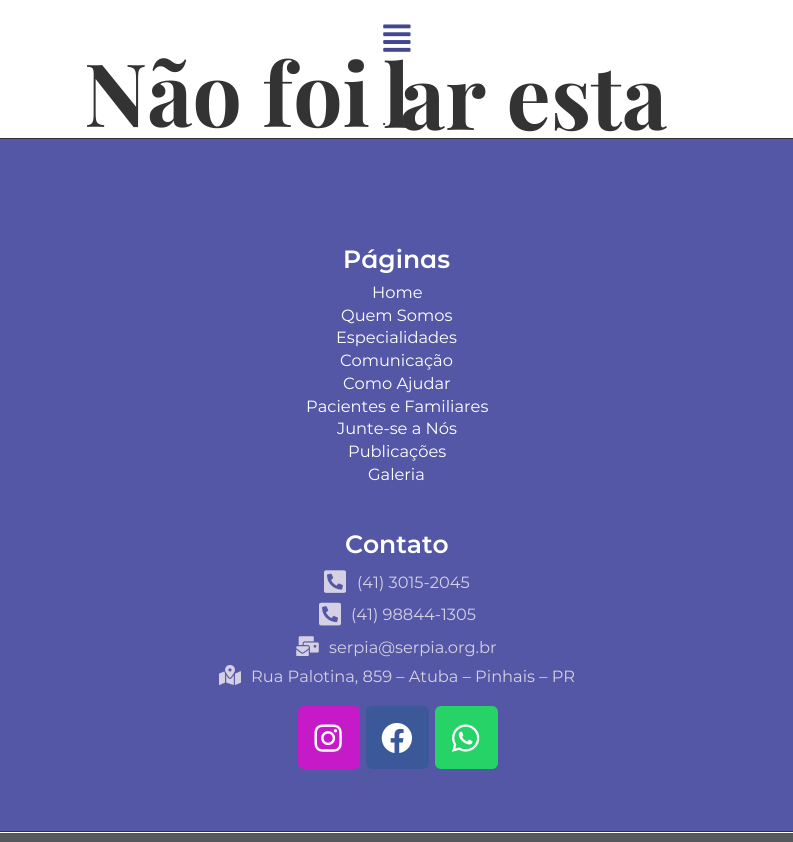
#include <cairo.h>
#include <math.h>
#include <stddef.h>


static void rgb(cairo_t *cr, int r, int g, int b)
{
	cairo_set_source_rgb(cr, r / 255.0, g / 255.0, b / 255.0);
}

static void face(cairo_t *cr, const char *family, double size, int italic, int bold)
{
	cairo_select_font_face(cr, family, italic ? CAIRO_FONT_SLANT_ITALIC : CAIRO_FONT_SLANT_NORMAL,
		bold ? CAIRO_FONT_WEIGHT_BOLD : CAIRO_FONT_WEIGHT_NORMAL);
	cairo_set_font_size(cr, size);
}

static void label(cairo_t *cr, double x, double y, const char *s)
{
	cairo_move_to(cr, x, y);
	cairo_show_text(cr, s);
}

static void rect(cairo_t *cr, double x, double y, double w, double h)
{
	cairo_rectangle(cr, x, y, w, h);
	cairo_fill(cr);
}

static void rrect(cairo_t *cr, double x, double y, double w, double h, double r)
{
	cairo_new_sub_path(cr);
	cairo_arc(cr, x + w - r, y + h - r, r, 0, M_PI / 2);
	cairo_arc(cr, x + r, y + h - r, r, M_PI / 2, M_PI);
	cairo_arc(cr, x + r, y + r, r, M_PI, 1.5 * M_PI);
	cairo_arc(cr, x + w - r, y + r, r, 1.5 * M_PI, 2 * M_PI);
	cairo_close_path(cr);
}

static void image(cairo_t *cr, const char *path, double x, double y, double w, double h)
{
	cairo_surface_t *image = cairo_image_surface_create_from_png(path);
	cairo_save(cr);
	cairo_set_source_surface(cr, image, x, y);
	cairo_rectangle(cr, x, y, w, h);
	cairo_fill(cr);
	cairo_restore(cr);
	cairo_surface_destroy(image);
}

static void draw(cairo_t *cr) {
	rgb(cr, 255, 255, 255);
	cairo_paint(cr);
	image(cr, "image0.png", 383, 24, 28, 28);
	face(cr, "Playfair Display", 87.5, 0, 1);
	rgb(cr, 51, 51, 51);
	label(cr, 84, 127, "Não foi");
	label(cr, 383, 128, "l");
	label(cr, 400, 130, "ar esta");
	face(cr, "Montserrat", 20, 0, 0);
	label(cr, 382, 125, ".");
	cairo_set_source_rgba(cr, 0.165, 0.176, 0.557, 0.8);
	rect(cr, 0, 139, 793, 692);
	rgb(cr, 51, 51, 51);
	rect(cr, 0, 138, 793, 1);
	face(cr, "Montserrat Alternates SemiBold", 25, 0, 0);
	rgb(cr, 255, 255, 255);
	label(cr, 343, 268, "Páginas");
	face(cr, "Montserrat", 16.25, 0, 0);
	label(cr, 372, 298, "Home");
	label(cr, 341, 321, "Quem Somos");
	label(cr, 336, 343, "Especialidades");
	label(cr, 340, 366, "Comunicação");
	label(cr, 343, 389, "Como Ajudar");
	label(cr, 306, 412, "Pacientes e Familiares");
	label(cr, 337, 434, "Junte-se a Nós");
	label(cr, 348, 457, "Publicações");
	label(cr, 368, 480, "Galeria");
	face(cr, "Montserrat SemiBold", 25, 0, 0);
	label(cr, 345, 553, "Contato");
	image(cr, "image1.png", 324, 570, 22, 23);
	face(cr, "Montserrat", 16.25, 0, 0);
	rgb(cr, 213, 208, 227);
	label(cr, 357, 588, "(41) 3015-2045");
	image(cr, "image2.png", 319, 602, 22, 24);
	label(cr, 351, 620, "(41) 98844-1305");
	image(cr, "image3.png", 296, 636, 23, 20);
	label(cr, 329, 653, "serpia@serpia.org.br");
	image(cr, "image4.png", 219, 665, 22, 20);
	label(cr, 251, 682, "Rua Palotina, 859 – Atuba – Pinhais – PR");
	rgb(cr, 198, 26, 200);
	rrect(cr, 298, 706, 62, 63, 6);
	cairo_fill(cr);
	image(cr, "image5.png", 314, 724, 28, 28);
	rgb(cr, 59, 89, 152);
	rrect(cr, 366, 706, 63, 63, 6);
	cairo_fill(cr);
	image(cr, "image6.png", 381, 723, 31, 30);
	rgb(cr, 37, 211, 102);
	rrect(cr, 435, 706, 63, 63, 6);
	cairo_fill(cr);
	image(cr, "image7.png", 452, 724, 28, 28);
	rgb(cr, 84, 89, 95);
	rect(cr, 0, 833, 793, 9);
	rgb(cr, 51, 51, 51);
	rect(cr, 0, 831, 793, 1);
}

int main(void) {
	cairo_surface_t *surface = cairo_image_surface_create(CAIRO_FORMAT_RGB24, 793, 842);
	cairo_t *cr = cairo_create(surface);
	cairo_font_options_t *options = cairo_font_options_create();
	cairo_font_options_set_hint_metrics(options, CAIRO_HINT_METRICS_OFF);
	cairo_font_options_set_hint_style(options, CAIRO_HINT_STYLE_NONE);
	cairo_set_font_options(cr, options);
	cairo_set_miter_limit(cr, 4);
	draw(cr);
	cairo_surface_write_to_png(surface, "render.png");
	cairo_font_options_destroy(options);
	cairo_destroy(cr);
	cairo_surface_destroy(surface);
	return 0;
}
